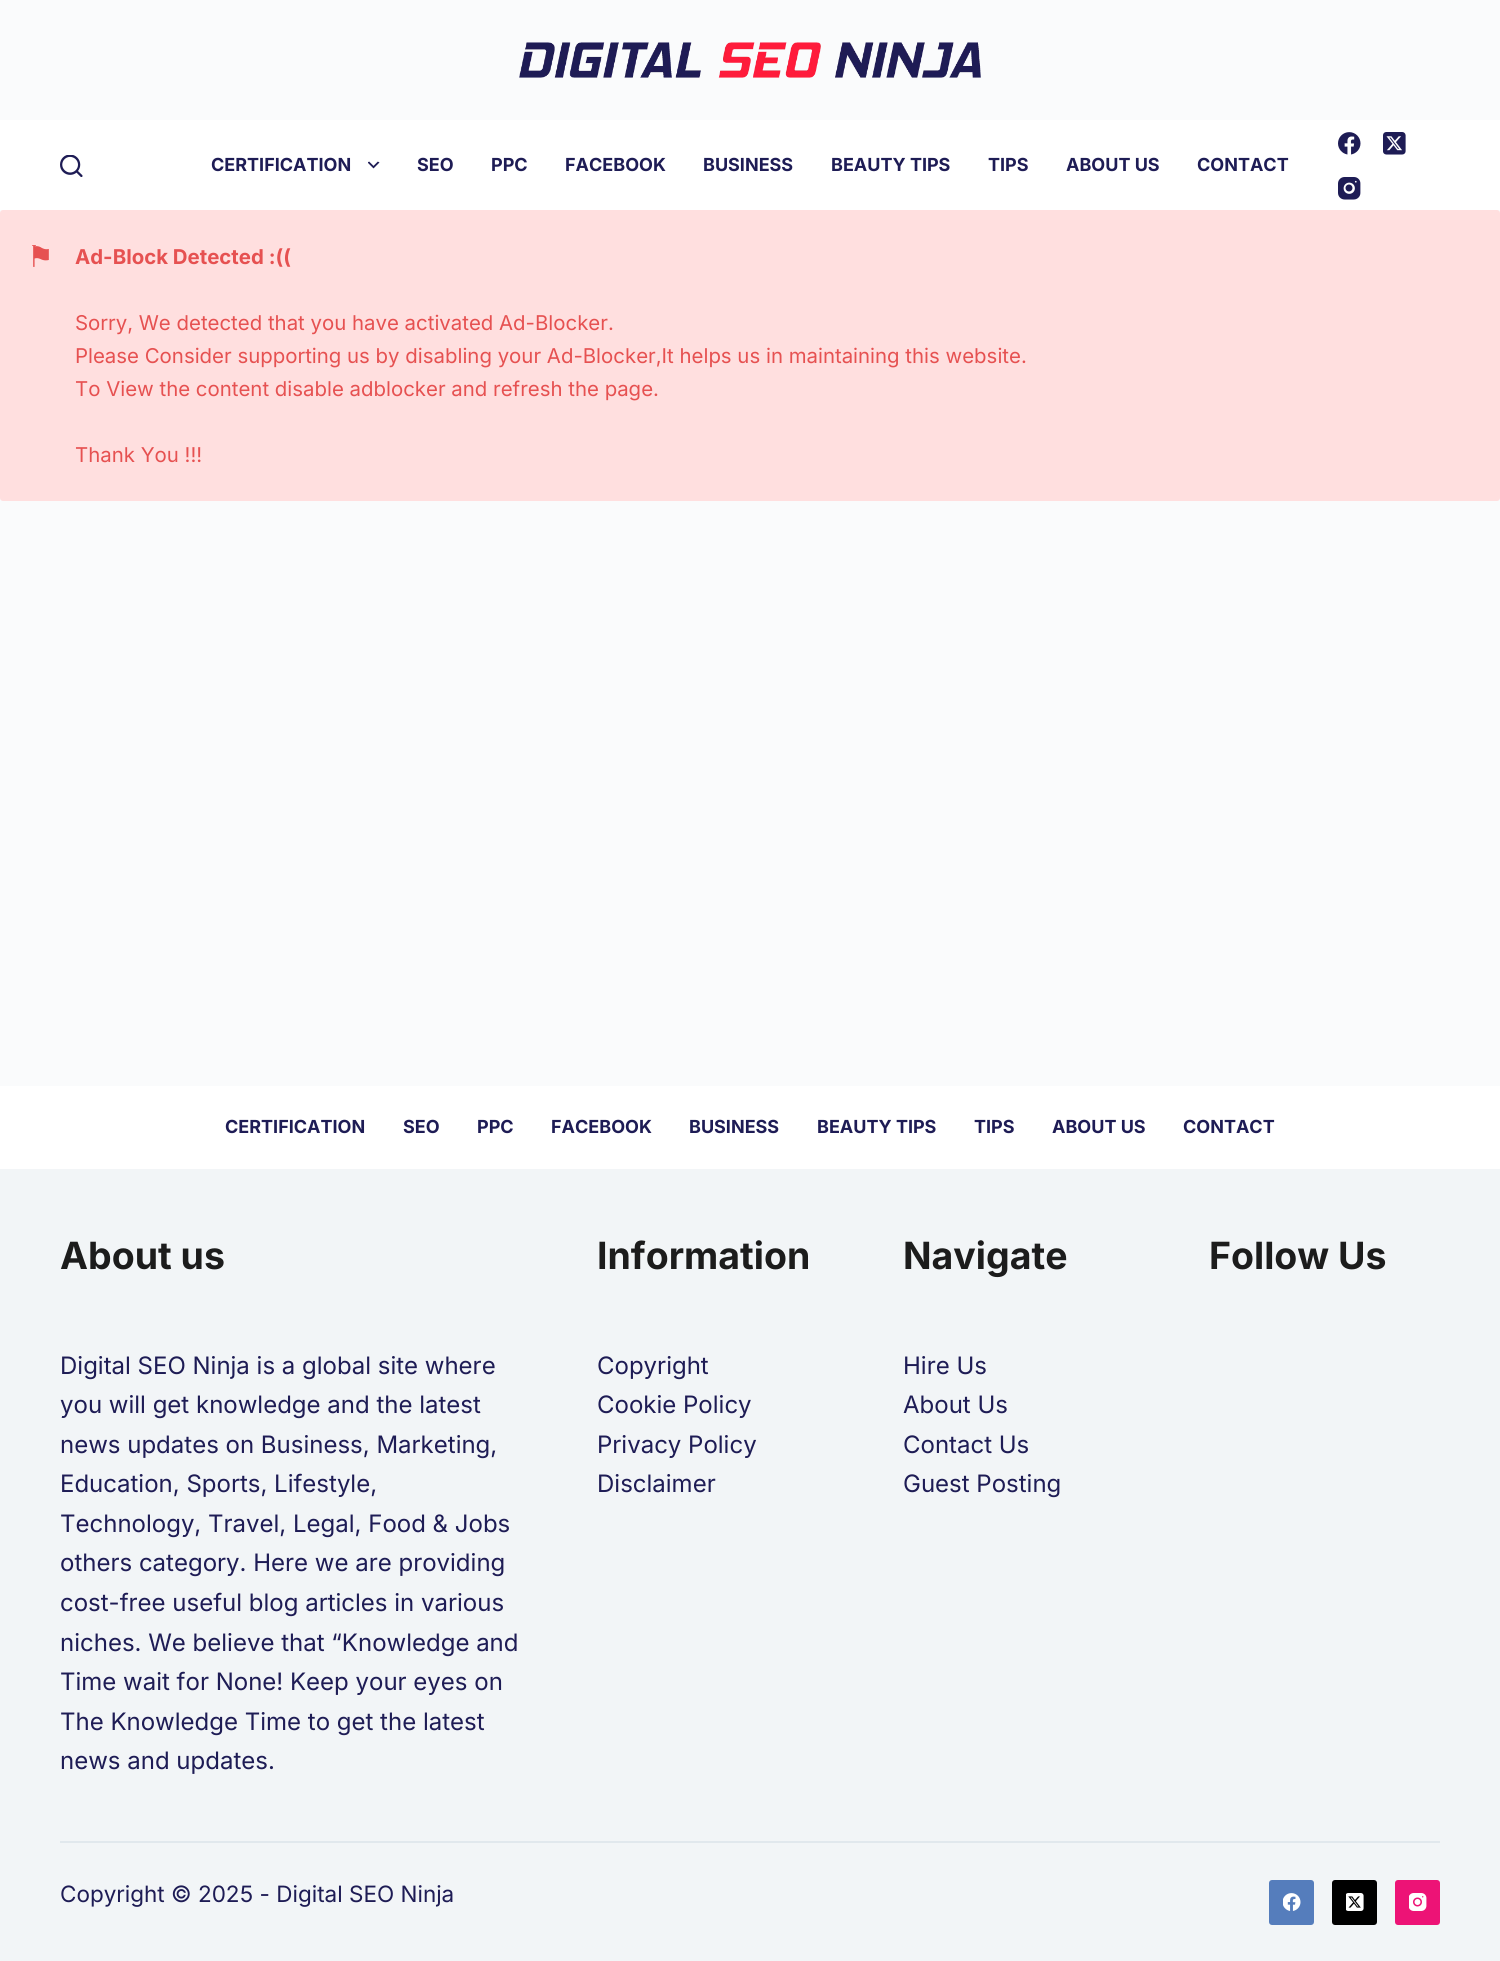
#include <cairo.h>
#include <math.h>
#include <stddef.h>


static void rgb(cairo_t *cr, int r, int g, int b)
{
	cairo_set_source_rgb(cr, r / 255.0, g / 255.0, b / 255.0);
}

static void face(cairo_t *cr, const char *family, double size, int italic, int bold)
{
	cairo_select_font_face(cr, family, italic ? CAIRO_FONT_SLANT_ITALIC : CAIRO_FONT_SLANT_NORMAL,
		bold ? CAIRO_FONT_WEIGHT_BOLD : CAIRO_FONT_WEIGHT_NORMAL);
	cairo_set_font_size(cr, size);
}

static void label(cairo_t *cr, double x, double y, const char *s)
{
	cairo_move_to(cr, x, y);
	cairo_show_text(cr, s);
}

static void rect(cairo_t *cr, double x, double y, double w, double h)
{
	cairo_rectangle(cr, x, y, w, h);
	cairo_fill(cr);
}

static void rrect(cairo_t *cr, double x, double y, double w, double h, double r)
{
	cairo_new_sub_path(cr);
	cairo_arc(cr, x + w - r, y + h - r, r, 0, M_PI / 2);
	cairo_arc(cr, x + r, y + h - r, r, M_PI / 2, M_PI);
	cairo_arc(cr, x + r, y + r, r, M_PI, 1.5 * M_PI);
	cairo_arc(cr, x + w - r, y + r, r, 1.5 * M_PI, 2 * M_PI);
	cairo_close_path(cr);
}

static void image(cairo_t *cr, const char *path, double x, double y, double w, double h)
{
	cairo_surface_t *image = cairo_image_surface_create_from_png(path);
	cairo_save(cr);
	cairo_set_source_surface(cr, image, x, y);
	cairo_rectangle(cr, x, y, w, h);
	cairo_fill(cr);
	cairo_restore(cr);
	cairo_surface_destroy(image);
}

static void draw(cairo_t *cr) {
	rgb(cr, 250, 251, 252);
	cairo_paint(cr);
	image(cr, "image0.png", 519, 42, 462, 36);
	rgb(cr, 255, 255, 255);
	rect(cr, 0, 120, 1500, 90);
	image(cr, "image1.png", 60, 155, 23, 22);
	face(cr, "Inter", 18, 0, 1);
	rgb(cr, 30, 28, 85);
	label(cr, 211, 171, "CERTIFICATION");
	image(cr, "image2.png", 368, 161, 12, 8);
	label(cr, 417, 171, "SEO");
	label(cr, 491, 171, "PPC");
	label(cr, 565, 171, "FACEBOOK");
	label(cr, 703, 171, "BUSINESS");
	label(cr, 831, 171, "BEAUTY TIPS");
	label(cr, 988, 171, "TIPS");
	label(cr, 1066, 171, "ABOUT US");
	label(cr, 1197, 171, "CONTACT");
	image(cr, "image3.png", 1338, 132, 23, 23);
	image(cr, "image4.png", 1383, 132, 23, 23);
	image(cr, "image5.png", 1338, 177, 23, 23);
	rgb(cr, 255, 223, 223);
	rrect(cr, 0, 210, 1500, 291, 3);
	cairo_fill(cr);
	face(cr, "DejaVu Sans", 30, 0, 0);
	rgb(cr, 230, 81, 81);
	label(cr, 27, 267, "⚑");
	face(cr, "Inter", 20.4, 0, 1);
	label(cr, 75, 264, "Ad-Block Detected :((");
	face(cr, "Inter", 20.4, 0, 0);
	label(cr, 75, 330, "Sorry, We detected that you have activated Ad-Blocker.");
	label(cr, 75, 363, "Please Consider supporting us by disabling your Ad-Blocker,It helps us in maintaining this website.");
	label(cr, 75, 396, "To View the content disable adblocker and refresh the page.");
	label(cr, 75, 462, "Thank You !!!");
	rgb(cr, 242, 245, 247);
	rect(cr, 0, 1169, 1500, 792);
	rgb(cr, 255, 255, 255);
	rect(cr, 0, 1086, 1500, 83);
	face(cr, "Inter", 18, 0, 1);
	rgb(cr, 30, 28, 85);
	label(cr, 225, 1133, "CERTIFICATION");
	label(cr, 403, 1133, "SEO");
	label(cr, 477, 1133, "PPC");
	label(cr, 551, 1133, "FACEBOOK");
	label(cr, 689, 1133, "BUSINESS");
	label(cr, 817, 1133, "BEAUTY TIPS");
	label(cr, 974, 1133, "TIPS");
	label(cr, 1052, 1133, "ABOUT US");
	label(cr, 1183, 1133, "CONTACT");
	rgb(cr, 225, 232, 237);
	rect(cr, 60, 1841, 1380, 2);
	face(cr, "Inter", 37.5, 0, 1);
	rgb(cr, 28, 28, 28);
	label(cr, 60, 1269, "About us");
	face(cr, "Inter", 24, 0, 0);
	rgb(cr, 30, 28, 85);
	label(cr, 60, 1374, "Digital SEO Ninja is a global site where");
	label(cr, 60, 1413, "you will get knowledge and the latest");
	label(cr, 60, 1453, "news updates on Business, Marketing,");
	label(cr, 60, 1492, "Education, Sports, Lifestyle,");
	label(cr, 60, 1532, "Technology, Travel, Legal, Food & Jobs");
	label(cr, 60, 1571, "others category. Here we are providing");
	label(cr, 60, 1611, "cost-free useful blog articles in various");
	label(cr, 60, 1651, "niches. We believe that “Knowledge and");
	label(cr, 60, 1690, "Time wait for None! Keep your eyes on");
	label(cr, 60, 1730, "The Knowledge Time to get the latest");
	label(cr, 60, 1769, "news and updates.");
	face(cr, "Inter", 37.5, 0, 1);
	rgb(cr, 28, 28, 28);
	label(cr, 597, 1269, "Information");
	face(cr, "Inter", 24, 0, 0);
	rgb(cr, 30, 28, 85);
	label(cr, 597, 1374, "Copyright");
	label(cr, 597, 1413, "Cookie Policy");
	label(cr, 597, 1453, "Privacy Policy");
	label(cr, 597, 1492, "Disclaimer");
	face(cr, "Inter", 37.5, 0, 1);
	rgb(cr, 28, 28, 28);
	label(cr, 903, 1269, "Navigate");
	face(cr, "Inter", 24, 0, 0);
	rgb(cr, 30, 28, 85);
	label(cr, 903, 1374, "Hire Us");
	label(cr, 903, 1413, "About Us");
	label(cr, 903, 1453, "Contact Us");
	label(cr, 903, 1492, "Guest Posting");
	face(cr, "Inter", 37.5, 0, 1);
	rgb(cr, 28, 28, 28);
	label(cr, 1209, 1269, "Follow Us");
	face(cr, "Inter", 22.5, 0, 0);
	rgb(cr, 30, 28, 85);
	label(cr, 60, 1902, "Copyright © 2025 - Digital SEO Ninja");
	rgb(cr, 85, 125, 188);
	rrect(cr, 1269, 1880, 45, 45, 3);
	cairo_fill(cr);
	image(cr, "image6.png", 1283, 1893, 18, 18);
	rgb(cr, 0, 0, 0);
	rrect(cr, 1332, 1880, 45, 45, 3);
	cairo_fill(cr);
	image(cr, "image7.png", 1346, 1893, 18, 18);
	rgb(cr, 237, 19, 118);
	rrect(cr, 1395, 1880, 45, 45, 3);
	cairo_fill(cr);
	image(cr, "image8.png", 1409, 1893, 18, 18);
}

int main(void) {
	cairo_surface_t *surface = cairo_image_surface_create(CAIRO_FORMAT_RGB24, 1500, 1961);
	cairo_t *cr = cairo_create(surface);
	cairo_font_options_t *options = cairo_font_options_create();
	cairo_font_options_set_hint_metrics(options, CAIRO_HINT_METRICS_OFF);
	cairo_font_options_set_hint_style(options, CAIRO_HINT_STYLE_NONE);
	cairo_set_font_options(cr, options);
	cairo_set_miter_limit(cr, 4);
	draw(cr);
	cairo_surface_write_to_png(surface, "render.png");
	cairo_font_options_destroy(options);
	cairo_destroy(cr);
	cairo_surface_destroy(surface);
	return 0;
}
